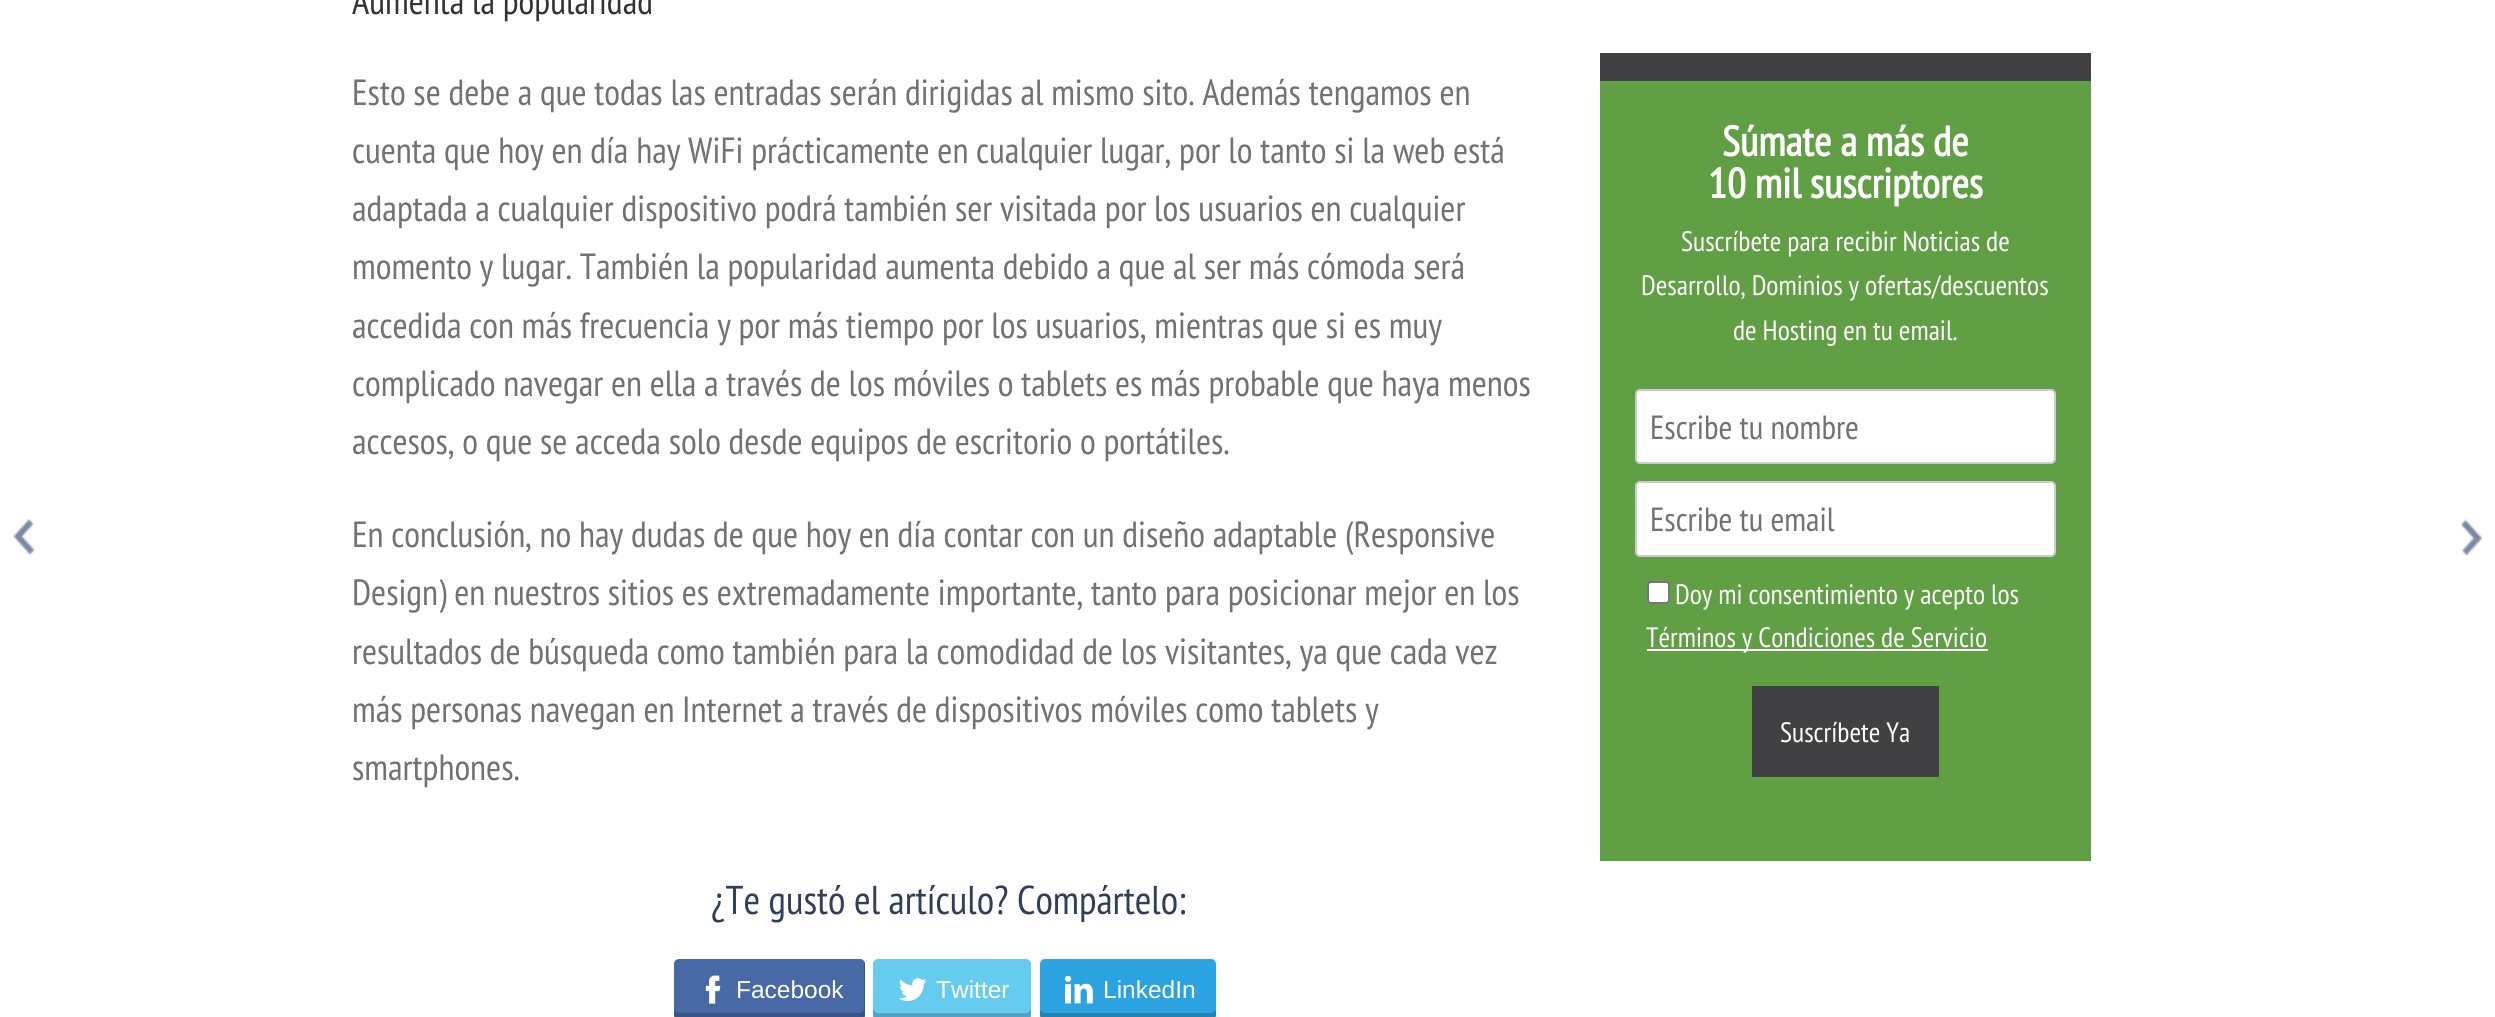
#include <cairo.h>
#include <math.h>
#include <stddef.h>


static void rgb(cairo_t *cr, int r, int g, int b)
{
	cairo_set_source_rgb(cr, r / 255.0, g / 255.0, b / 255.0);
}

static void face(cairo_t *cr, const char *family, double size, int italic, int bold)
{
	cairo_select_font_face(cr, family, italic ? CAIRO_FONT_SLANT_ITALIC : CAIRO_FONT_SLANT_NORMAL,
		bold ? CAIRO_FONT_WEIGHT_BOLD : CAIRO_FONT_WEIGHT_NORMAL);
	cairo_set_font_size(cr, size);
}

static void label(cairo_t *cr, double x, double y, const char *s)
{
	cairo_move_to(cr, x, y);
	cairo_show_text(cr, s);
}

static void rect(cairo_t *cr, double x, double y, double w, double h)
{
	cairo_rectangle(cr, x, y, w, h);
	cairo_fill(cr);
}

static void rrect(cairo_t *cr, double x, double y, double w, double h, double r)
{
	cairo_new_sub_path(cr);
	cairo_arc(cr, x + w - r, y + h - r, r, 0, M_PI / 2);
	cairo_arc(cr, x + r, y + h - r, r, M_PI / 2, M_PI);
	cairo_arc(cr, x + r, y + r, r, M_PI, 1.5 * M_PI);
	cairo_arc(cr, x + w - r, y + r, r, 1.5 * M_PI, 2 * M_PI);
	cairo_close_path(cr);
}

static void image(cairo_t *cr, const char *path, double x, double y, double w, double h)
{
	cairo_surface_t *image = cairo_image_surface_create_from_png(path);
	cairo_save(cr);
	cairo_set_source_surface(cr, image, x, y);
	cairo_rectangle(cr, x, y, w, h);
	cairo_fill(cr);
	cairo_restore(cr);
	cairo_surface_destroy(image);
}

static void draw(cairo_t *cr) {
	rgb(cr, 255, 255, 255);
	cairo_paint(cr);
	face(cr, "PT Sans Narrow", 36.4, 0, 0);
	rgb(cr, 51, 51, 51);
	label(cr, 352, 14, "Aumenta la popularidad");
	rgb(cr, 115, 114, 114);
	label(cr, 352, 105, "Esto se debe a que todas las entradas serán dirigidas al mismo sito. Además tengamos en");
	label(cr, 352, 163, "cuenta que hoy en día hay WiFi prácticamente en cualquier lugar, por lo tanto si la web está");
	label(cr, 352, 221, "adaptada a cualquier dispositivo podrá también ser visitada por los usuarios en cualquier");
	label(cr, 352, 279, "momento y lugar. También la popularidad aumenta debido a que al ser más cómoda será");
	label(cr, 352, 338, "accedida con más frecuencia y por más tiempo por los usuarios, mientras que si es muy");
	label(cr, 352, 396, "complicado navegar en ella a través de los móviles o tablets es más probable que haya menos");
	label(cr, 352, 454, "accesos, o que se acceda solo desde equipos de escritorio o portátiles.");
	label(cr, 352, 547, "En conclusión, no hay dudas de que hoy en día contar con un diseño adaptable (Responsive");
	label(cr, 352, 605, "Design) en nuestros sitios es extremadamente importante, tanto para posicionar mejor en los");
	label(cr, 352, 664, "resultados de búsqueda como también para la comodidad de los visitantes, ya que cada vez");
	label(cr, 352, 722, "más personas navegan en Internet a través de dispositivos móviles como tablets y");
	label(cr, 352, 780, "smartphones.");
	face(cr, "PT Sans Narrow", 40.25, 0, 0);
	rgb(cr, 50, 63, 89);
	label(cr, 711, 914, "¿Te gustó el artículo? Compártelo:");
	rgb(cr, 71, 105, 165);
	rrect(cr, 674, 959, 191, 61, 5);
	cairo_fill(cr);
	cairo_set_source_rgba(cr, 0, 0, 0, 0.2);
	cairo_new_path(cr);
	cairo_move_to(cr, 674, 1008);
	cairo_line_to(cr, 674, 1015);
	cairo_curve_to(cr, 674, 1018, 676, 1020, 679, 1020);
	cairo_line_to(cr, 860, 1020);
	cairo_curve_to(cr, 863, 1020, 865, 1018, 865, 1015);
	cairo_line_to(cr, 865, 964);
	cairo_curve_to(cr, 865, 963, 865, 962, 864, 961);
	cairo_line_to(cr, 864, 1008);
	cairo_curve_to(cr, 864, 1011, 862, 1013, 859, 1013);
	cairo_line_to(cr, 679, 1013);
	cairo_curve_to(cr, 676, 1013, 674, 1011, 674, 1008);
	cairo_close_path(cr);
	cairo_fill(cr);
	image(cr, "image0.png", 705, 975, 16, 29);
	face(cr, "Liberation Sans", 24.5, 0, 0);
	rgb(cr, 255, 255, 255);
	label(cr, 736, 998, "Facebook");
	rgb(cr, 101, 204, 239);
	rrect(cr, 873, 959, 158, 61, 5);
	cairo_fill(cr);
	cairo_set_source_rgba(cr, 0, 0, 0, 0.2);
	cairo_new_path(cr);
	cairo_move_to(cr, 873, 1008);
	cairo_line_to(cr, 873, 1015);
	cairo_curve_to(cr, 873, 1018, 875, 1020, 878, 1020);
	cairo_line_to(cr, 1026, 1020);
	cairo_curve_to(cr, 1029, 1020, 1031, 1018, 1031, 1015);
	cairo_line_to(cr, 1031, 1008);
	cairo_curve_to(cr, 1031, 1011, 1028, 1013, 1026, 1013);
	cairo_line_to(cr, 878, 1013);
	cairo_curve_to(cr, 876, 1013, 873, 1011, 873, 1008);
	cairo_close_path(cr);
	cairo_fill(cr);
	image(cr, "image1.png", 898, 978, 29, 23);
	rgb(cr, 255, 255, 255);
	label(cr, 936, 998, "Twitter");
	rgb(cr, 43, 163, 225);
	rrect(cr, 1040, 959, 176, 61, 5);
	cairo_fill(cr);
	cairo_set_source_rgba(cr, 0, 0, 0, 0.2);
	cairo_new_path(cr);
	cairo_move_to(cr, 1040, 1008);
	cairo_line_to(cr, 1040, 1015);
	cairo_curve_to(cr, 1040, 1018, 1042, 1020, 1045, 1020);
	cairo_line_to(cr, 1211, 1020);
	cairo_curve_to(cr, 1214, 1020, 1216, 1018, 1216, 1015);
	cairo_line_to(cr, 1216, 1008);
	cairo_curve_to(cr, 1216, 1011, 1214, 1013, 1211, 1013);
	cairo_line_to(cr, 1045, 1013);
	cairo_curve_to(cr, 1042, 1013, 1040, 1011, 1040, 1008);
	cairo_close_path(cr);
	cairo_fill(cr);
	image(cr, "image2.png", 1064, 975, 29, 29);
	rgb(cr, 255, 255, 255);
	label(cr, 1103, 998, "LinkedIn");
	rgb(cr, 96, 159, 67);
	rect(cr, 1600, 81, 491, 780);
	rgb(cr, 65, 64, 66);
	rect(cr, 1600, 53, 491, 28);
	face(cr, "PT Sans Narrow", 42, 0, 1);
	rgb(cr, 255, 255, 255);
	label(cr, 1722, 156, "Súmate a más de");
	label(cr, 1708, 198, "10 mil suscriptores");
	face(cr, "PT Sans Narrow", 28, 0, 0);
	label(cr, 1681, 251, "Suscríbete para recibir Noticias de");
	label(cr, 1641, 295, "Desarrollo, Dominios y ofertas/descuentos");
	label(cr, 1733, 340, "de Hosting en tu email.");
	rrect(cr, 1636, 390, 419, 73, 4);
	cairo_fill_preserve(cr);
	rgb(cr, 204, 204, 204);
	cairo_stroke(cr);
	face(cr, "PT Sans Narrow", 33.5, 0, 0);
	rgb(cr, 115, 114, 114);
	label(cr, 1650, 439, "Escribe tu nombre");
	rgb(cr, 255, 255, 255);
	rrect(cr, 1636, 482, 419, 74, 4);
	cairo_fill_preserve(cr);
	rgb(cr, 204, 204, 204);
	cairo_stroke(cr);
	rgb(cr, 115, 114, 114);
	label(cr, 1650, 531, "Escribe tu email");
	rgb(cr, 255, 255, 255);
	rrect(cr, 1648, 582, 21, 21, 3);
	cairo_fill_preserve(cr);
	rgb(cr, 118, 118, 118);
	cairo_stroke(cr);
	face(cr, "PT Sans Narrow", 28, 0, 0);
	rgb(cr, 255, 255, 255);
	label(cr, 1675, 604, "Doy mi consentimiento y acepto los");
	rect(cr, 1647, 649, 341, 2);
	label(cr, 1646, 647, "Términos y Condiciones de Servicio");
	rgb(cr, 65, 64, 66);
	rect(cr, 1752, 686, 187, 91);
	rgb(cr, 255, 255, 255);
	label(cr, 1780, 742, "Suscríbete Ya");
	image(cr, "image3.png", 13, 519, 23, 37);
	image(cr, "image4.png", 2460, 519, 22, 37);
}

int main(void) {
	cairo_surface_t *surface = cairo_image_surface_create(CAIRO_FORMAT_RGB24, 2495, 1017);
	cairo_t *cr = cairo_create(surface);
	cairo_font_options_t *options = cairo_font_options_create();
	cairo_font_options_set_hint_metrics(options, CAIRO_HINT_METRICS_OFF);
	cairo_font_options_set_hint_style(options, CAIRO_HINT_STYLE_NONE);
	cairo_set_font_options(cr, options);
	cairo_set_miter_limit(cr, 4);
	draw(cr);
	cairo_surface_write_to_png(surface, "render.png");
	cairo_font_options_destroy(options);
	cairo_destroy(cr);
	cairo_surface_destroy(surface);
	return 0;
}
